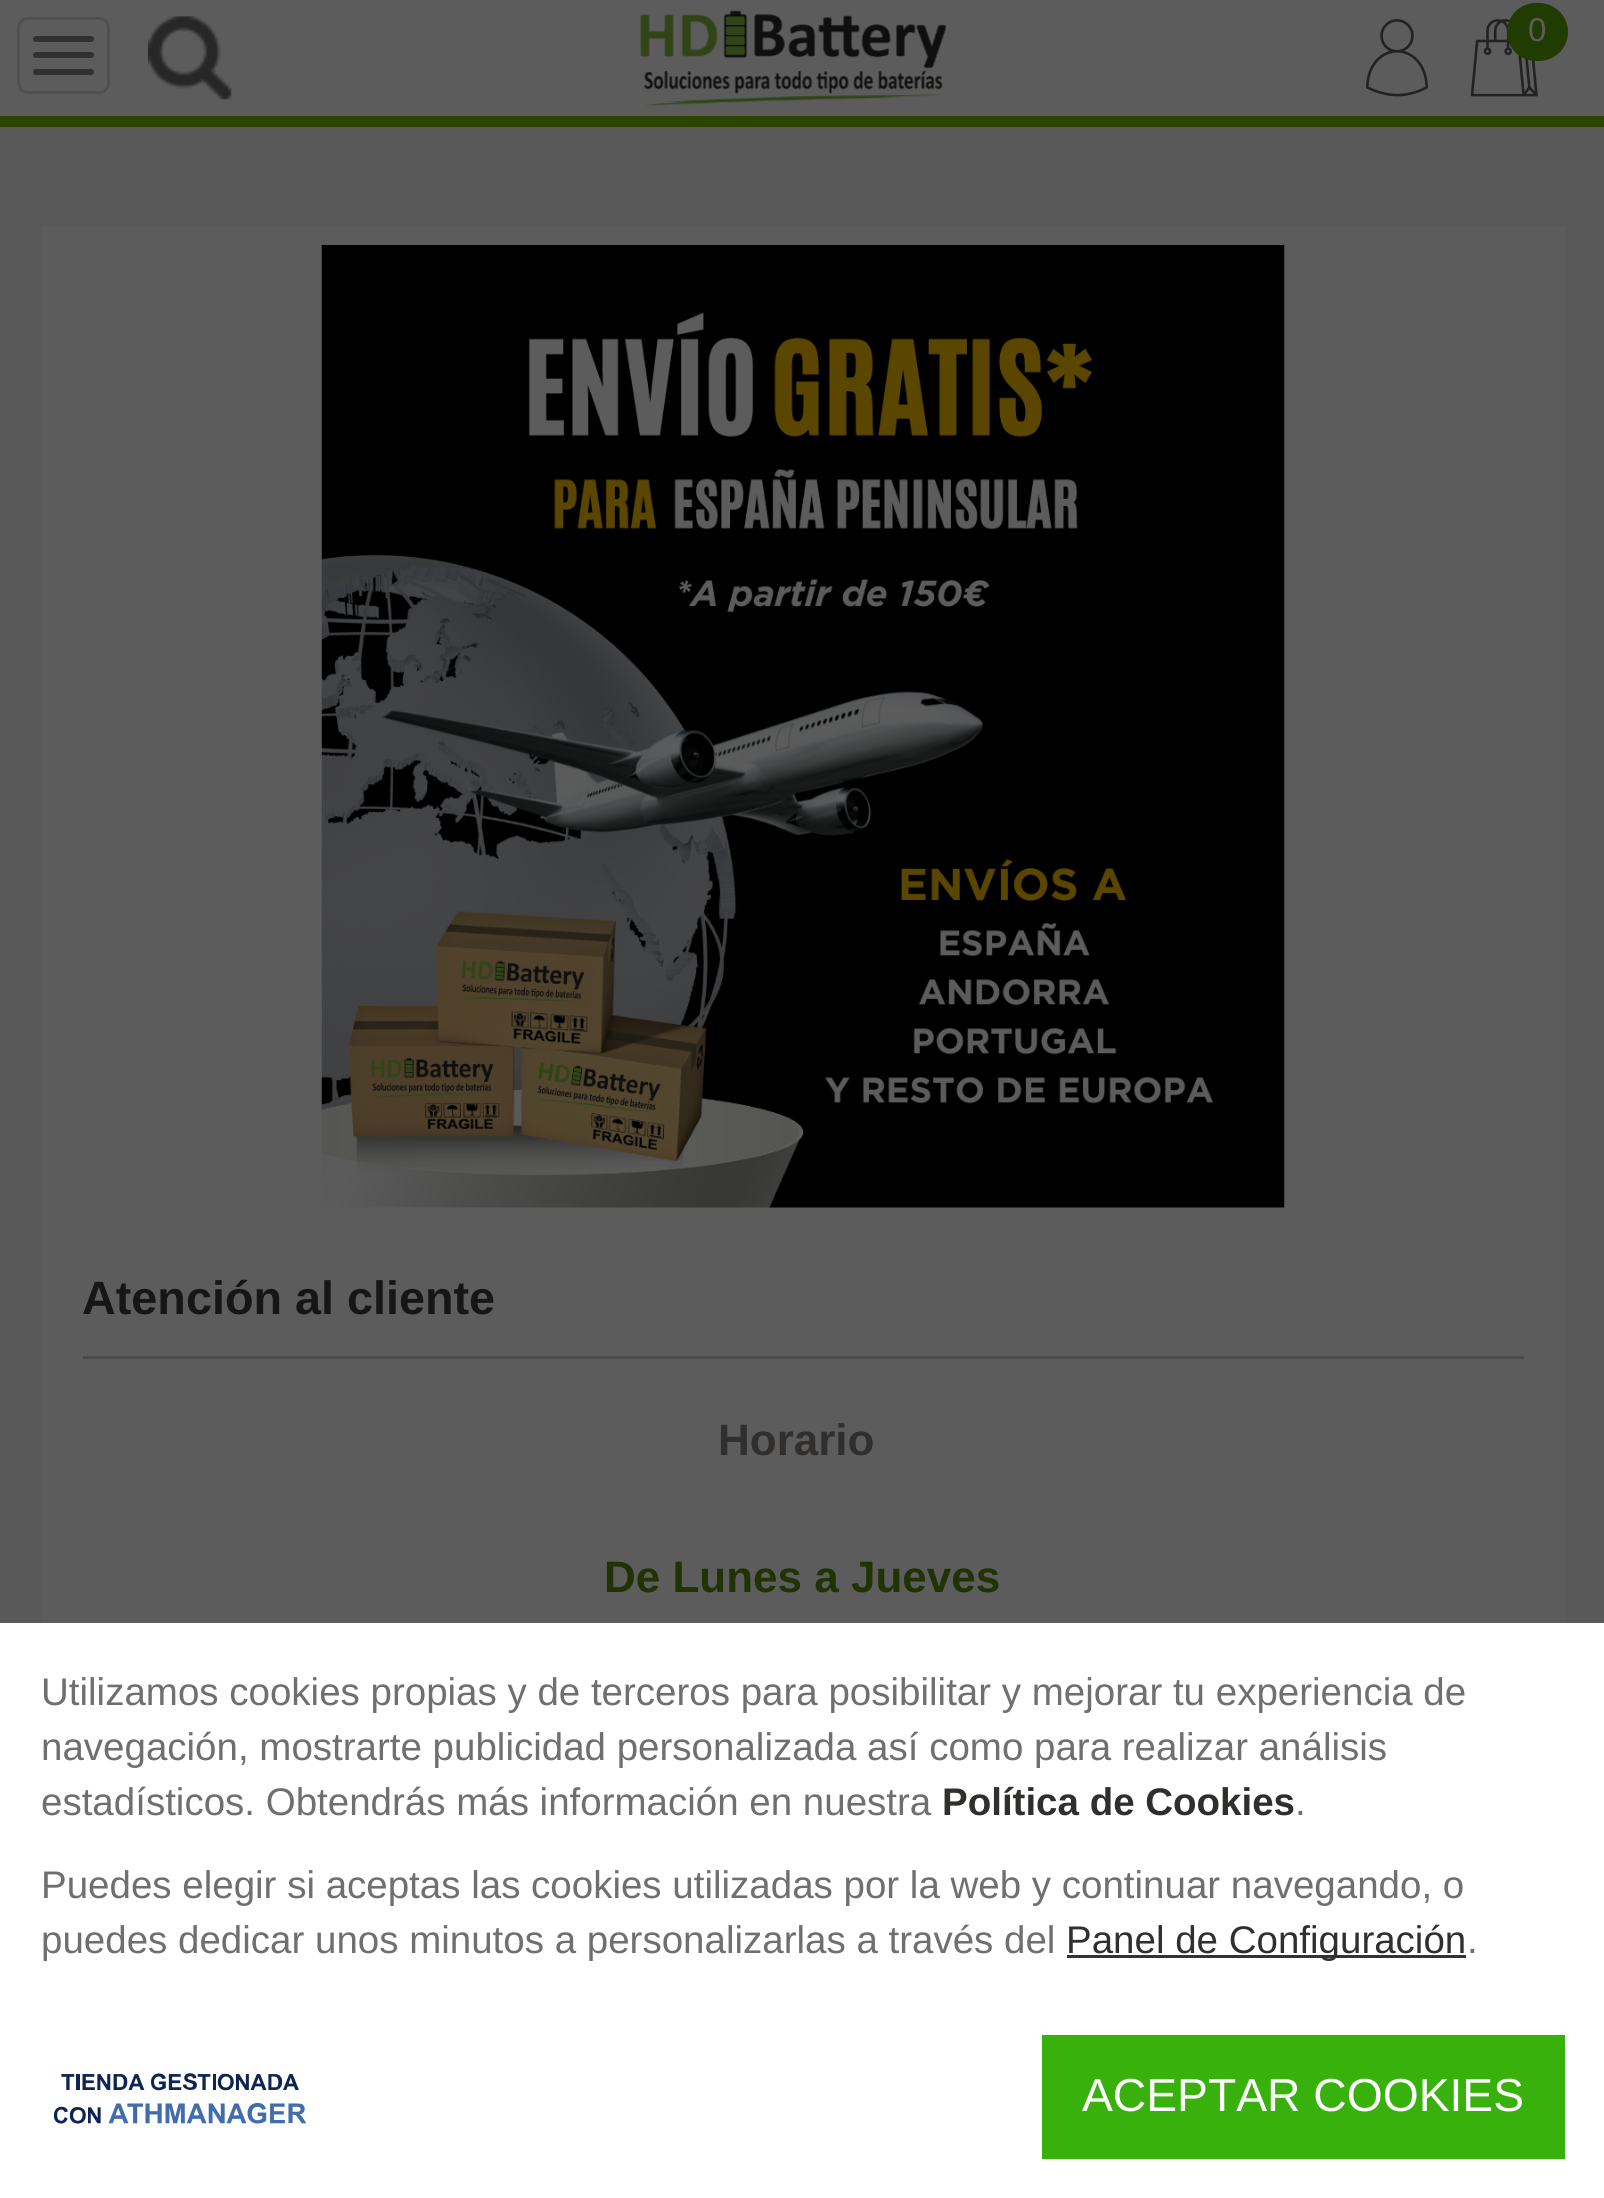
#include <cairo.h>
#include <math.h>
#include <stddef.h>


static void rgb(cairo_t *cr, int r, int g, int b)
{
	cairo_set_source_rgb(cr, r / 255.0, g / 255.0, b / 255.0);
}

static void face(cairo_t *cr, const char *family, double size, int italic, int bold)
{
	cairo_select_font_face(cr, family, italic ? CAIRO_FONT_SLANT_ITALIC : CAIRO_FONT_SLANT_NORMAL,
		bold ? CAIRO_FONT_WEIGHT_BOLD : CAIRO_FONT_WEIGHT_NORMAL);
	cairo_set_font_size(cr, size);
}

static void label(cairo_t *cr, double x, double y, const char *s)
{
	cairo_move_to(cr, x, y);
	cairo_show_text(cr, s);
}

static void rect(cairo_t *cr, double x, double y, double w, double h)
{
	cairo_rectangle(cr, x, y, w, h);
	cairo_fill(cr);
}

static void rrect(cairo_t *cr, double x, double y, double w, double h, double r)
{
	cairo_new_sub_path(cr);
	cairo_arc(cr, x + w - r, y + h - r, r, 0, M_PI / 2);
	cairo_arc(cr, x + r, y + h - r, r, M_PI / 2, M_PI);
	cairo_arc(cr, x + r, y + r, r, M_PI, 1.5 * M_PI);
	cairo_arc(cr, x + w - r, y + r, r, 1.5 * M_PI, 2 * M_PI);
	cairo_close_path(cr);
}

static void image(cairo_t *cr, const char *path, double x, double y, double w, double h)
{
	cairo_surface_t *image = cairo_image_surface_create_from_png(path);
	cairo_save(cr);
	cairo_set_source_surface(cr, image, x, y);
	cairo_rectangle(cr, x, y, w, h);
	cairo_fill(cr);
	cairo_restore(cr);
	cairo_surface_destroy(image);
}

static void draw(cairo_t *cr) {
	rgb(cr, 89, 89, 89);
	cairo_paint(cr);
	rgb(cr, 92, 92, 92);
	rect(cr, 0, 0, 1604, 116);
	rgb(cr, 44, 67, 2);
	rect(cr, 0, 116, 1604, 11);
	rrect(cr, 18.5, 18.5, 90, 74, 9.5);
	rgb(cr, 80, 80, 80);
	cairo_set_line_width(cr, 3);
	cairo_stroke(cr);
	rgb(cr, 49, 49, 49);
	rrect(cr, 33, 36, 61, 6, 3);
	cairo_fill(cr);
	rrect(cr, 33, 52, 61, 6, 3);
	cairo_fill(cr);
	rrect(cr, 33, 69, 61, 6, 3);
	cairo_fill(cr);
	image(cr, "image0.png", 148, 16, 84, 84);
	image(cr, "image1.png", 640, 10, 306, 96);
	image(cr, "image2.png", 1366, 19, 62, 78);
	image(cr, "image3.png", 1470, 19, 68, 78);
	rgb(cr, 32, 60, 0);
	rrect(cr, 1507, 3, 61, 58, 29);
	cairo_fill(cr);
	face(cr, "Liberation Sans", 33, 0, 0);
	rgb(cr, 92, 92, 92);
	label(cr, 1528, 41, "0");
	rect(cr, 41, 226, 1524, 1397);
	image(cr, "image4.png", 321, 245, 964, 963);
	rgb(cr, 76, 76, 76);
	rect(cr, 83, 1356, 1441, 3);
	face(cr, "Liberation Sans", 46.75, 0, 1);
	rgb(cr, 22, 22, 22);
	label(cr, 82, 1314, "Atención al cliente");
	face(cr, "Liberation Sans", 44, 0, 1);
	rgb(cr, 48, 47, 46);
	label(cr, 718, 1455, "Horario");
	rgb(cr, 33, 50, 5);
	label(cr, 604, 1592, "De Lunes a Jueves");
	rgb(cr, 255, 255, 255);
	rect(cr, 0, 1623, 1604, 575);
	face(cr, "Liberation Sans", 38.5, 0, 0);
	rgb(cr, 111, 111, 111);
	label(cr, 41, 1705, "Utilizamos cookies propias y de terceros para posibilitar y mejorar tu experiencia de");
	label(cr, 41, 1760, "navegación, mostrarte publicidad personalizada así como para realizar análisis");
	label(cr, 41, 1815, "estadísticos. Obtendrás más información en nuestra");
	face(cr, "Liberation Sans", 38.5, 0, 1);
	rgb(cr, 48, 47, 46);
	label(cr, 942, 1815, "Política de Cookies");
	face(cr, "Liberation Sans", 38.5, 0, 0);
	rgb(cr, 111, 111, 111);
	label(cr, 1295, 1815, ".");
	label(cr, 41, 1898, "Puedes elegir si aceptas las cookies utilizadas por la web y continuar navegando, o");
	label(cr, 41, 1953, "puedes dedicar unos minutos a personalizarlas a través del");
	rgb(cr, 51, 51, 51);
	rect(cr, 1067, 1955, 399, 3);
	rgb(cr, 48, 47, 46);
	label(cr, 1066, 1953, "Panel de Configuración");
	rgb(cr, 111, 111, 111);
	label(cr, 1467, 1953, ".");
	image(cr, "image5.png", 53, 2073, 254, 51);
	rgb(cr, 57, 177, 13);
	rect(cr, 1042, 2035, 523, 124);
	face(cr, "Liberation Sans", 46.25, 0, 0);
	rgb(cr, 255, 255, 255);
	label(cr, 1082, 2111, "ACEPTAR COOKIES");
}

int main(void) {
	cairo_surface_t *surface = cairo_image_surface_create(CAIRO_FORMAT_RGB24, 1604, 2198);
	cairo_t *cr = cairo_create(surface);
	cairo_font_options_t *options = cairo_font_options_create();
	cairo_font_options_set_hint_metrics(options, CAIRO_HINT_METRICS_OFF);
	cairo_font_options_set_hint_style(options, CAIRO_HINT_STYLE_NONE);
	cairo_set_font_options(cr, options);
	cairo_set_miter_limit(cr, 4);
	draw(cr);
	cairo_surface_write_to_png(surface, "render.png");
	cairo_font_options_destroy(options);
	cairo_destroy(cr);
	cairo_surface_destroy(surface);
	return 0;
}
